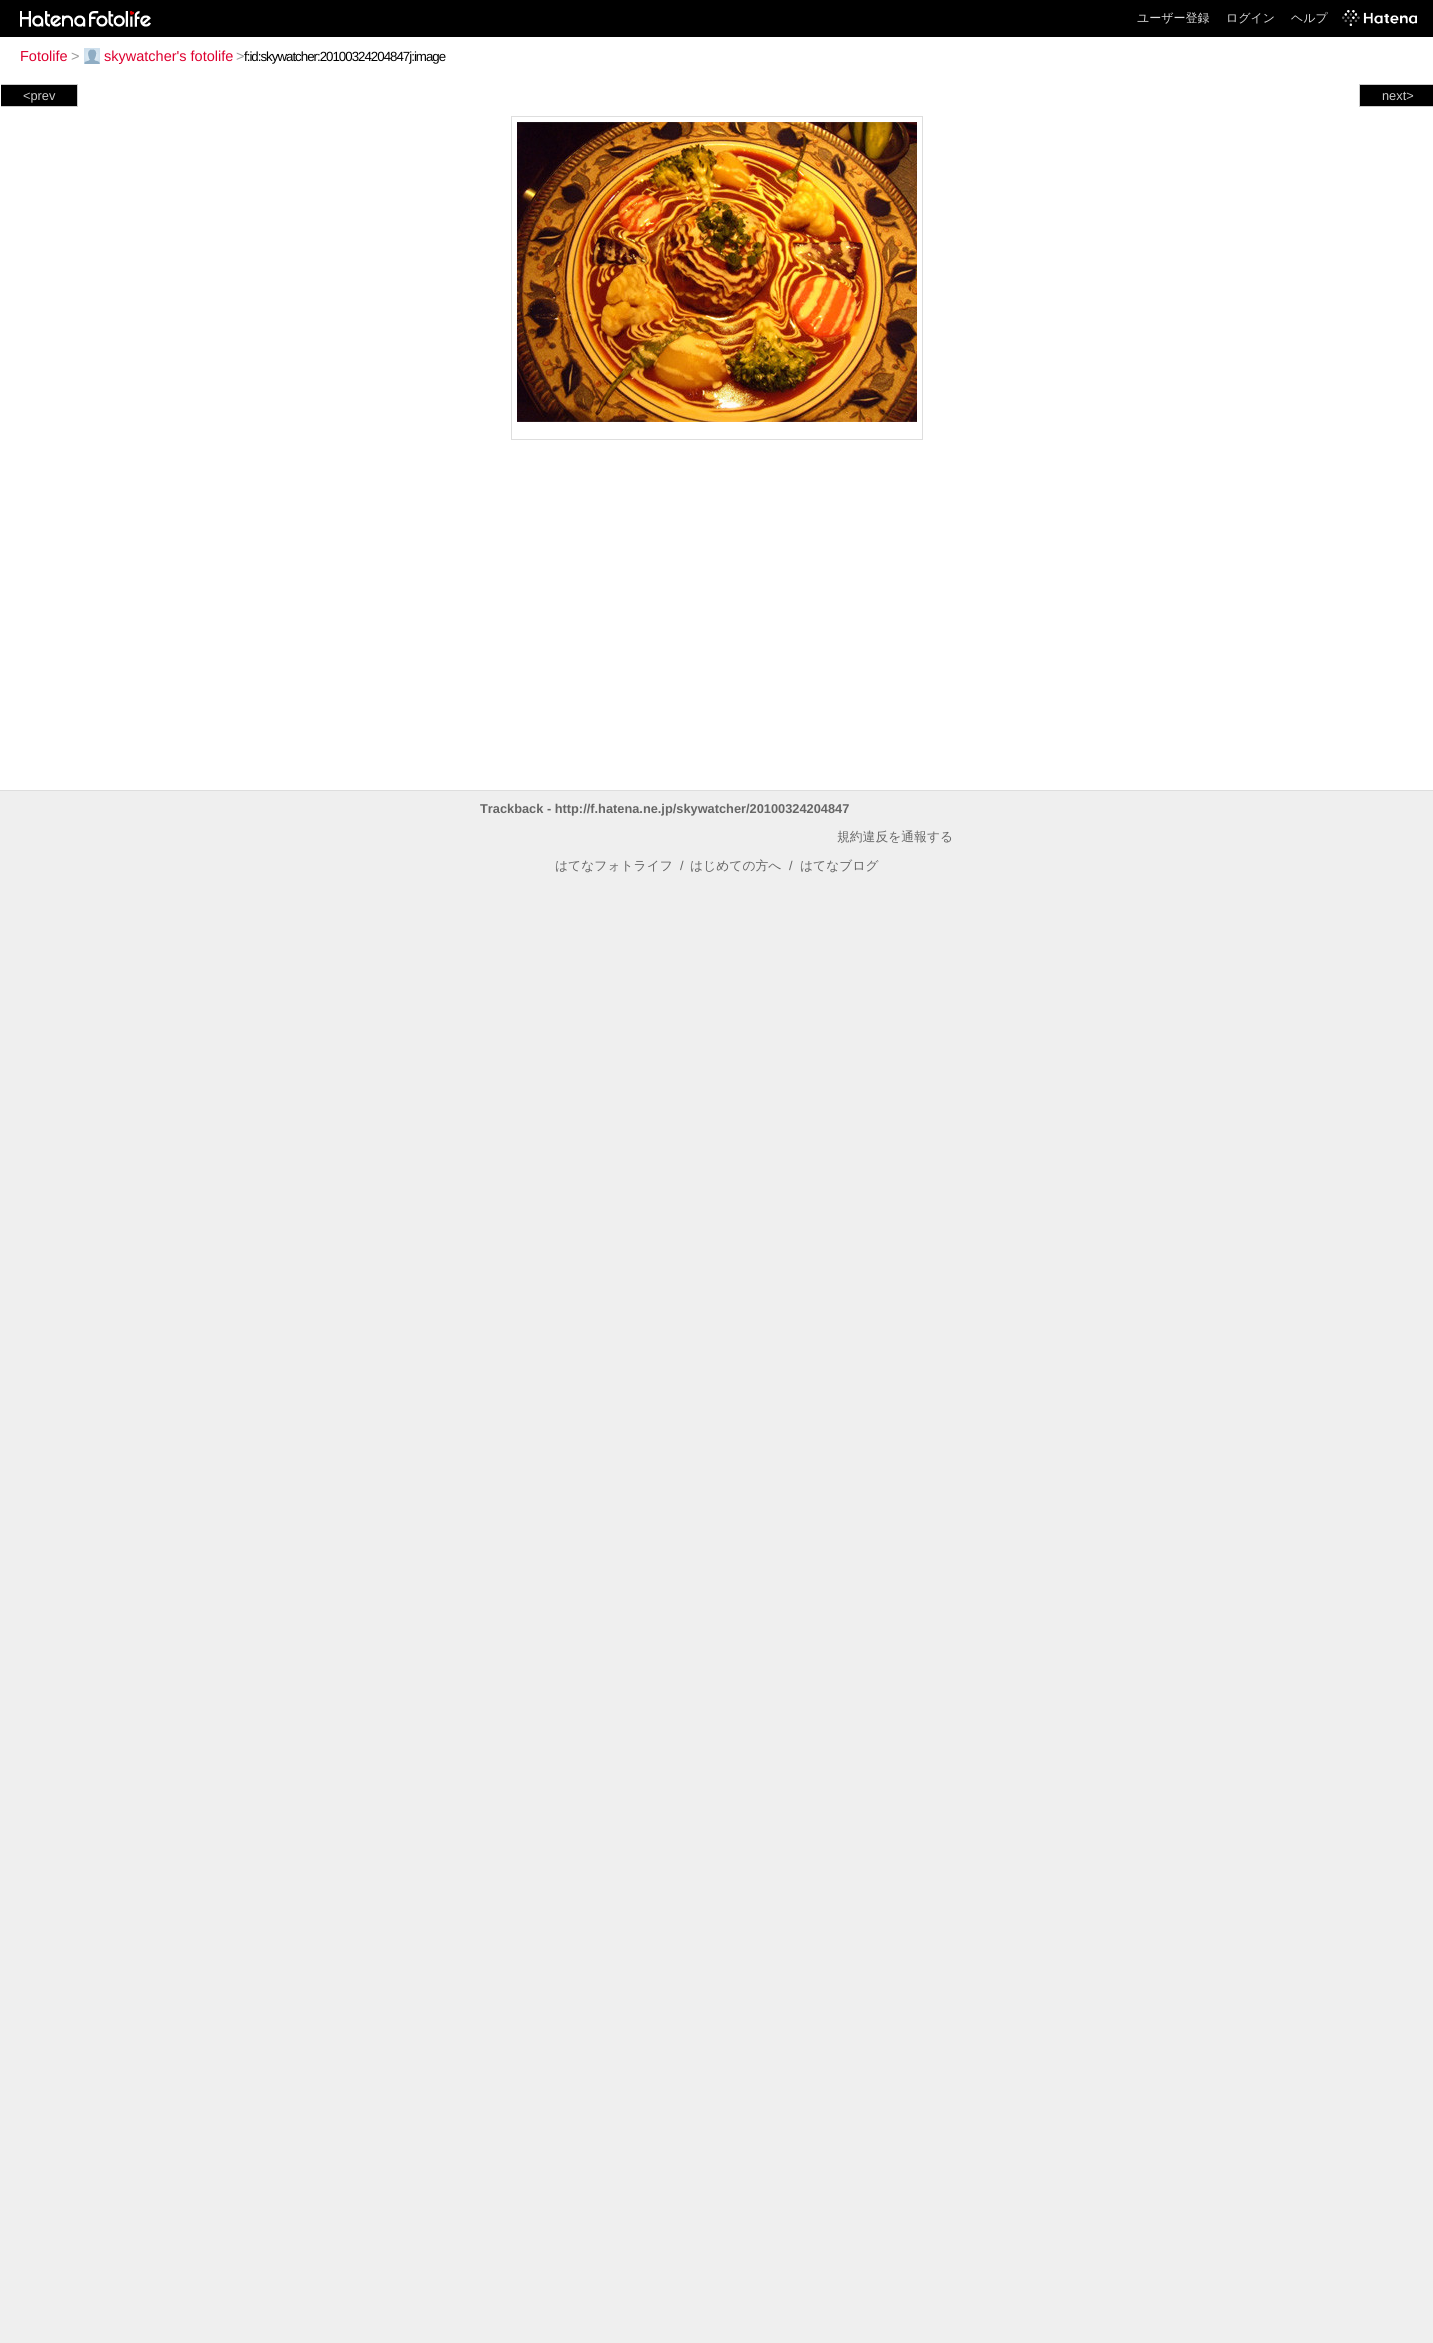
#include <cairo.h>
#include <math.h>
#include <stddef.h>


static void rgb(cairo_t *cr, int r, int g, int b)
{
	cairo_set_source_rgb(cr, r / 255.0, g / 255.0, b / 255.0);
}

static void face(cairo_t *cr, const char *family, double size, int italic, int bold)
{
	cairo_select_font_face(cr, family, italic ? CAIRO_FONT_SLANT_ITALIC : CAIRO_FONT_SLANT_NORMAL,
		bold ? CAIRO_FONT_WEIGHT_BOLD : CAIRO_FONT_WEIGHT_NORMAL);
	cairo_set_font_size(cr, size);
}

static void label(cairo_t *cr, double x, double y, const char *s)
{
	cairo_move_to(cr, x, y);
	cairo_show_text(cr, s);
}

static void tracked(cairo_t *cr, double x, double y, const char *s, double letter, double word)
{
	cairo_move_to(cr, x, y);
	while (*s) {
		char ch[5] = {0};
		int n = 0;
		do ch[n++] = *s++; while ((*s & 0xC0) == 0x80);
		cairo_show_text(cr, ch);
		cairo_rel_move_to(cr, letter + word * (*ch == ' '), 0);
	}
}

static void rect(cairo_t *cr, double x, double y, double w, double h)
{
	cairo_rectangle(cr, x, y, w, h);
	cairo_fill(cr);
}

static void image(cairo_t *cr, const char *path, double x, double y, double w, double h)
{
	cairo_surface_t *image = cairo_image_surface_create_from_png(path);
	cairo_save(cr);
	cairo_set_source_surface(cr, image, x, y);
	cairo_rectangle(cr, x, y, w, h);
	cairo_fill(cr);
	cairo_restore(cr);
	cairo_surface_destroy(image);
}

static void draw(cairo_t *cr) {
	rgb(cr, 239, 239, 239);
	cairo_paint(cr);
	rgb(cr, 0, 0, 0);
	rect(cr, 0, 0, 1433, 37);
	image(cr, "image0.png", 20, 11, 66, 16);
	image(cr, "image1.png", 89, 11, 62, 16);
	face(cr, "WenQuanYi Zen Hei Medium", 12, 0, 0);
	rgb(cr, 221, 221, 221);
	label(cr, 1137, 22, "ユーザー登録");
	label(cr, 1226, 22, "ログイン");
	label(cr, 1291, 22, "ヘルプ");
	image(cr, "image2.png", 1342, 10, 75, 16);
	rgb(cr, 255, 255, 255);
	rect(cr, 0, 37, 1433, 753);
	face(cr, "Liberation Sans", 14.5, 0, 0);
	rgb(cr, 222, 0, 47);
	label(cr, 20, 61, "Fotolife");
	rgb(cr, 153, 153, 153);
	label(cr, 71, 61, ">");
	image(cr, "image3.png", 84, 48, 16, 16);
	rgb(cr, 222, 0, 47);
	label(cr, 104, 61, "skywatcher's fotolife");
	rgb(cr, 153, 153, 153);
	label(cr, 236, 61, ">");
	face(cr, "Liberation Sans", 13.3, 0, 0);
	rgb(cr, 0, 0, 0);
	tracked(cr, 244, 61, "f:id:skywatcher:20100324204847j:image", -1, 0);
	rgb(cr, 222, 222, 222);
	rect(cr, 0, 790, 1433, 1);
	rgb(cr, 0, 0, 0);
	rect(cr, 1, 85, 76, 21);
	rgb(cr, 204, 204, 204);
	rect(cr, 1, 84, 77, 1);
	rect(cr, 77, 84, 1, 23);
	rect(cr, 1, 106, 77, 1);
	face(cr, "Liberation Sans", 12.8, 0, 0);
	label(cr, 23, 100, "<prev");
	rgb(cr, 0, 0, 0);
	rect(cr, 1360, 85, 73, 21);
	rgb(cr, 204, 204, 204);
	rect(cr, 1359, 84, 74, 1);
	rect(cr, 1359, 106, 74, 1);
	rect(cr, 1359, 84, 1, 23);
	label(cr, 1382, 100, "next>");
	cairo_rectangle(cr, 511.5, 116.5, 411, 323);
	rgb(cr, 222, 222, 222);
	cairo_set_line_width(cr, 1);
	cairo_stroke(cr);
	image(cr, "image4.png", 517, 122, 400, 300);
	face(cr, "Liberation Sans", 12.8, 0, 1);
	rgb(cr, 102, 102, 102);
	label(cr, 480, 813, "Trackback - http://f.hatena.ne.jp/skywatcher/20100324204847");
	face(cr, "WenQuanYi Zen Hei Medium", 12.8, 0, 0);
	label(cr, 837, 841, "規約違反を通報する");
	label(cr, 555, 870, "はてなフォトライフ");
	face(cr, "Liberation Sans", 12.8, 0, 0);
	label(cr, 680, 870, "/");
	face(cr, "WenQuanYi Zen Hei Medium", 12.8, 0, 0);
	label(cr, 690, 870, "はじめての方へ");
	face(cr, "Liberation Sans", 12.8, 0, 0);
	label(cr, 789, 870, "/");
	face(cr, "WenQuanYi Zen Hei Medium", 12.8, 0, 0);
	label(cr, 800, 870, "はてなブログ");
}

int main(void) {
	cairo_surface_t *surface = cairo_image_surface_create(CAIRO_FORMAT_RGB24, 1433, 2343);
	cairo_t *cr = cairo_create(surface);
	cairo_font_options_t *options = cairo_font_options_create();
	cairo_font_options_set_hint_metrics(options, CAIRO_HINT_METRICS_OFF);
	cairo_font_options_set_hint_style(options, CAIRO_HINT_STYLE_NONE);
	cairo_set_font_options(cr, options);
	cairo_set_miter_limit(cr, 4);
	draw(cr);
	cairo_surface_write_to_png(surface, "render.png");
	cairo_font_options_destroy(options);
	cairo_destroy(cr);
	cairo_surface_destroy(surface);
	return 0;
}
